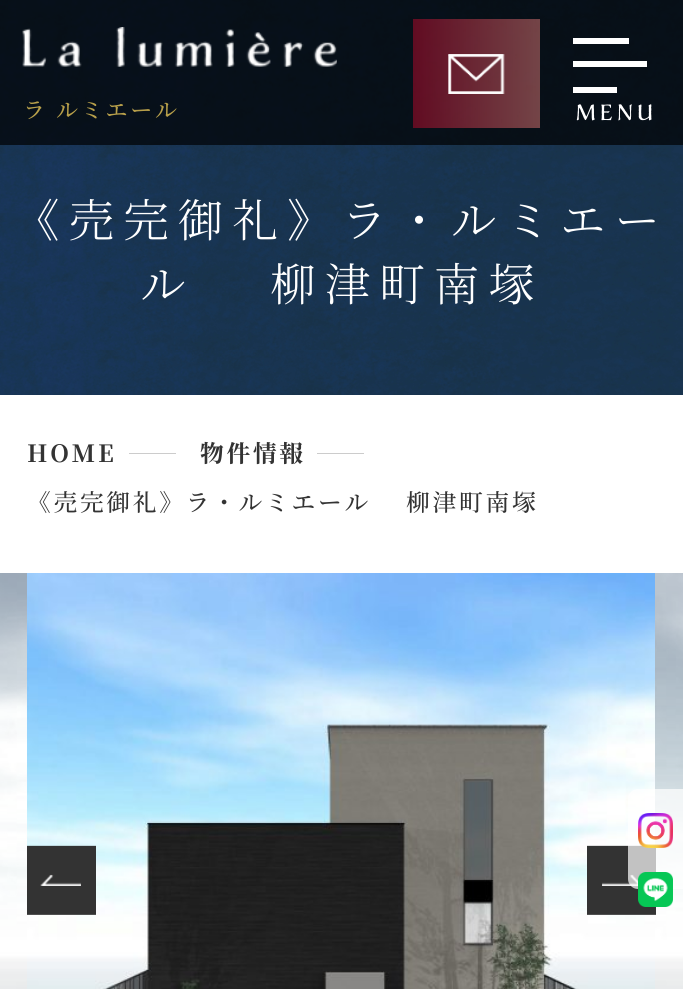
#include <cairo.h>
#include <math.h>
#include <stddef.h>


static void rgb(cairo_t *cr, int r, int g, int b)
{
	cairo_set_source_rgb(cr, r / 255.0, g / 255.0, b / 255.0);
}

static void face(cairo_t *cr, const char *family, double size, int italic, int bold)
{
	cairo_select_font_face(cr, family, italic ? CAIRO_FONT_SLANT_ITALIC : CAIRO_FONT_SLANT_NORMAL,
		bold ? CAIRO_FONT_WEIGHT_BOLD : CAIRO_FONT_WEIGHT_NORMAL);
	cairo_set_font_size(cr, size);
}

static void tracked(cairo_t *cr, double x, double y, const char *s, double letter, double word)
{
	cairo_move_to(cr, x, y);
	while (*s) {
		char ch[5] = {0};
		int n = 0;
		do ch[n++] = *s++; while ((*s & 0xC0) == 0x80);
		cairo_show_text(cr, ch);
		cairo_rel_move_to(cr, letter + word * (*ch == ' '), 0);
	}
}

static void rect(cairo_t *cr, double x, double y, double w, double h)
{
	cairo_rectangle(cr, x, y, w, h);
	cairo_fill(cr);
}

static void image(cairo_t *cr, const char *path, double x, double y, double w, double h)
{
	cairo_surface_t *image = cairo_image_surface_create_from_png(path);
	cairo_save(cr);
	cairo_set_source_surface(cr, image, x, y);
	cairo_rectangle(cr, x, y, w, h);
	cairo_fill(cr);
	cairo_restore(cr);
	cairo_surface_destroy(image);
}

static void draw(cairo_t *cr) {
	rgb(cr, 255, 255, 255);
	cairo_paint(cr);
	image(cr, "image2.png", 0, 0, 683, 145);
	image(cr, "image0.png", 448, 54, 57, 40);
	image(cr, "image1.png", 22, 27, 315, 40);
	face(cr, "Noto Serif JP Medium", 22, 0, 0);
	rgb(cr, 183, 159, 74);
	tracked(cr, 23, 118, "ラ ルミエール", 2.75, 0);
	rgb(cr, 255, 255, 255);
	rect(cr, 573, 38, 56, 6);
	rect(cr, 573, 61, 74, 6);
	rect(cr, 573, 87, 44, 6);
	face(cr, "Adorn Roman", 22, 0, 0);
	tracked(cr, 576, 120, "MENU", 4.5, 0);
	image(cr, "image3.png", 0, 145, 683, 250);
	face(cr, "Noto Serif JP Light", 45.5, 0, 0);
	tracked(cr, 14, 237, "《売完御礼》ラ・ルミエー", 9.1, 0);
	tracked(cr, 140, 301, "ル　 柳津町南塚", 9.1, 0);
	face(cr, "Noto Serif JP", 23.7, 0, 1);
	rgb(cr, 51, 51, 51);
	tracked(cr, 27, 462, "HOME", 2.75, 0);
	rgb(cr, 204, 204, 204);
	rect(cr, 129, 453, 47, 1);
	rgb(cr, 51, 51, 51);
	tracked(cr, 200, 462, "物件情報", 2.75, 0);
	rgb(cr, 204, 204, 204);
	rect(cr, 317, 453, 47, 1);
	face(cr, "Noto Serif JP Medium", 23.7, 0, 0);
	rgb(cr, 51, 51, 51);
	tracked(cr, 27, 511, "《売完御礼》ラ・ルミエール　 柳津町南塚", 2.75, 0);
	image(cr, "image4.png", 0, 573, 27, 416);
	image(cr, "image5.png", 27, 573, 628, 416);
	image(cr, "image6.png", 655, 573, 28, 416);
	image(cr, "image7.png", 27, 845, 69, 70);
	image(cr, "image8.png", 587, 845, 69, 70);
	cairo_set_source_rgba(cr, 1, 1, 1, 0.7);
	cairo_new_path(cr);
	cairo_move_to(cr, 638, 789);
	cairo_line_to(cr, 683, 789);
	cairo_line_to(cr, 683, 889);
	cairo_line_to(cr, 638, 889);
	cairo_curve_to(cr, 632.5, 889, 628, 884.5, 628, 879);
	cairo_line_to(cr, 628, 799);
	cairo_curve_to(cr, 628, 793.5, 632.5, 789, 638, 789);
	cairo_close_path(cr);
	cairo_fill(cr);
	image(cr, "image9.png", 638, 813, 35, 35);
	image(cr, "image10.png", 638, 872, 35, 35);
}

int main(void) {
	cairo_surface_t *surface = cairo_image_surface_create(CAIRO_FORMAT_RGB24, 683, 989);
	cairo_t *cr = cairo_create(surface);
	cairo_font_options_t *options = cairo_font_options_create();
	cairo_font_options_set_hint_metrics(options, CAIRO_HINT_METRICS_OFF);
	cairo_font_options_set_hint_style(options, CAIRO_HINT_STYLE_NONE);
	cairo_set_font_options(cr, options);
	cairo_set_miter_limit(cr, 4);
	draw(cr);
	cairo_surface_write_to_png(surface, "render.png");
	cairo_font_options_destroy(options);
	cairo_destroy(cr);
	cairo_surface_destroy(surface);
	return 0;
}
